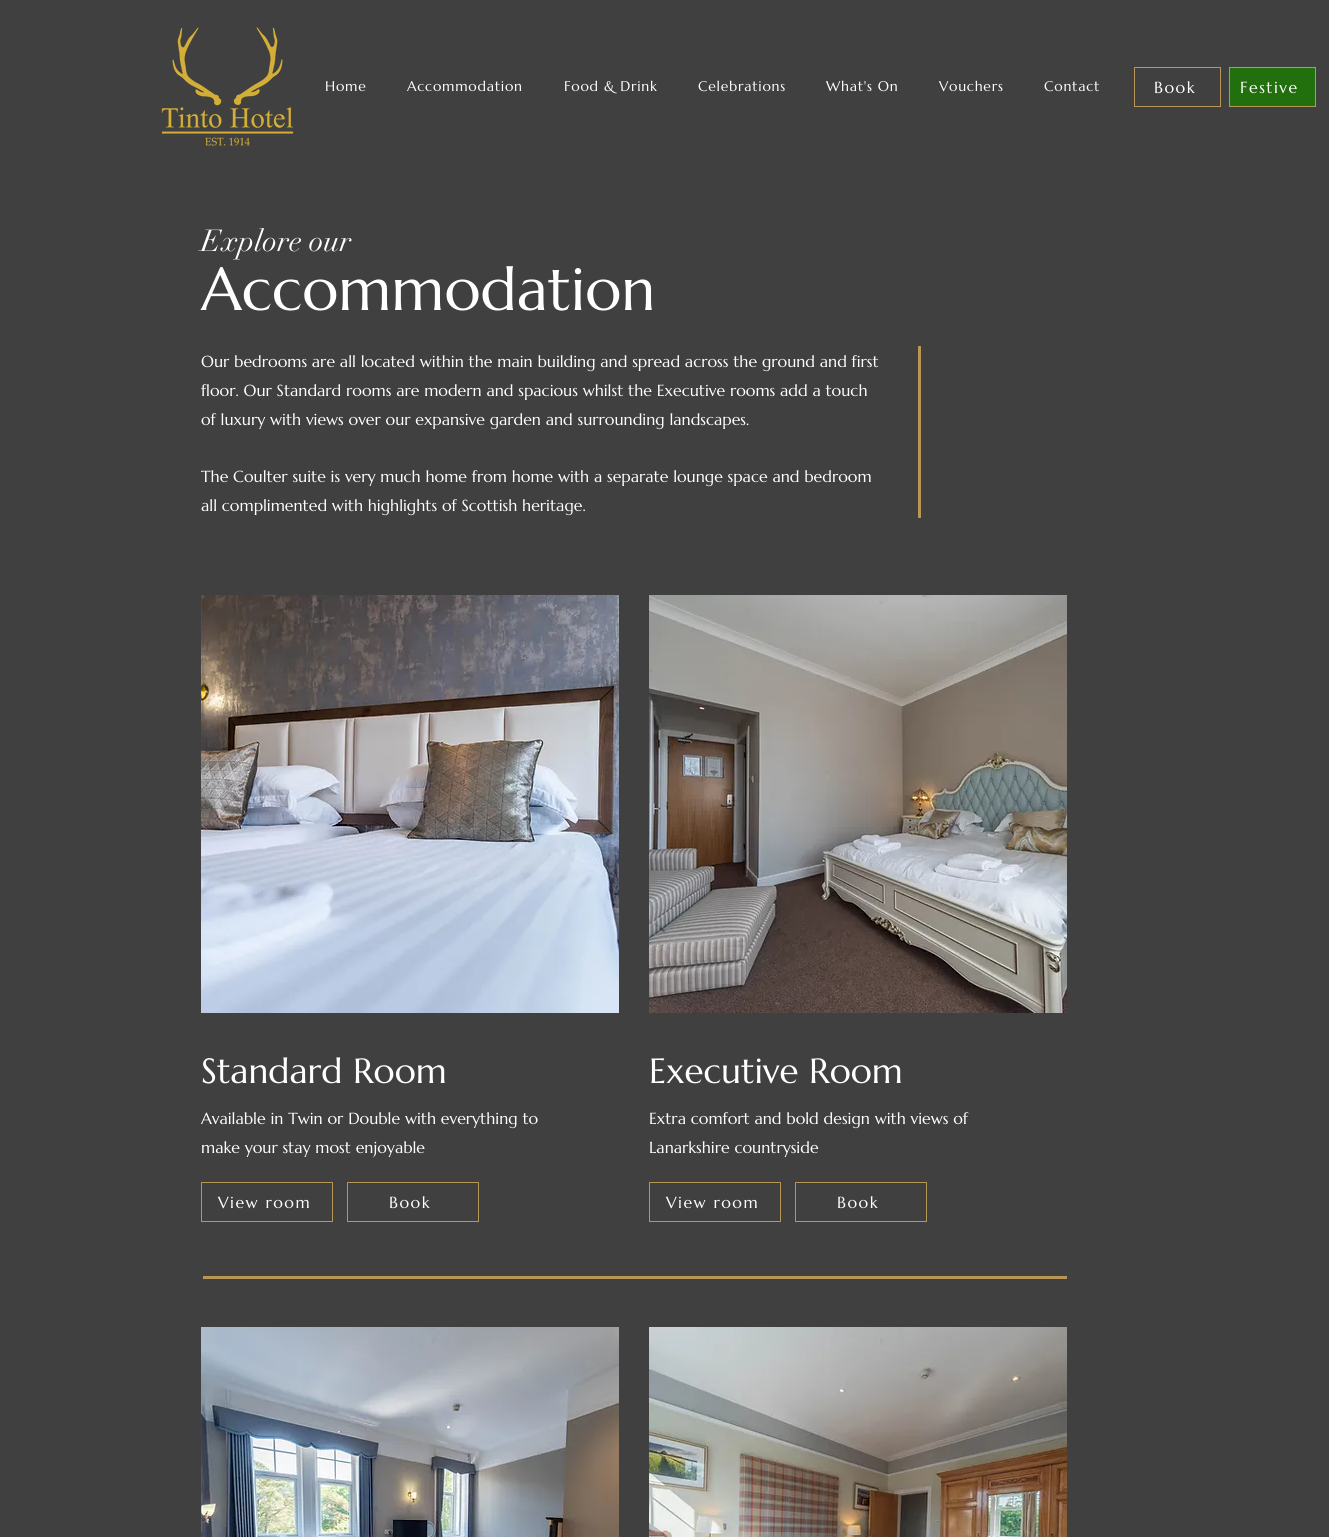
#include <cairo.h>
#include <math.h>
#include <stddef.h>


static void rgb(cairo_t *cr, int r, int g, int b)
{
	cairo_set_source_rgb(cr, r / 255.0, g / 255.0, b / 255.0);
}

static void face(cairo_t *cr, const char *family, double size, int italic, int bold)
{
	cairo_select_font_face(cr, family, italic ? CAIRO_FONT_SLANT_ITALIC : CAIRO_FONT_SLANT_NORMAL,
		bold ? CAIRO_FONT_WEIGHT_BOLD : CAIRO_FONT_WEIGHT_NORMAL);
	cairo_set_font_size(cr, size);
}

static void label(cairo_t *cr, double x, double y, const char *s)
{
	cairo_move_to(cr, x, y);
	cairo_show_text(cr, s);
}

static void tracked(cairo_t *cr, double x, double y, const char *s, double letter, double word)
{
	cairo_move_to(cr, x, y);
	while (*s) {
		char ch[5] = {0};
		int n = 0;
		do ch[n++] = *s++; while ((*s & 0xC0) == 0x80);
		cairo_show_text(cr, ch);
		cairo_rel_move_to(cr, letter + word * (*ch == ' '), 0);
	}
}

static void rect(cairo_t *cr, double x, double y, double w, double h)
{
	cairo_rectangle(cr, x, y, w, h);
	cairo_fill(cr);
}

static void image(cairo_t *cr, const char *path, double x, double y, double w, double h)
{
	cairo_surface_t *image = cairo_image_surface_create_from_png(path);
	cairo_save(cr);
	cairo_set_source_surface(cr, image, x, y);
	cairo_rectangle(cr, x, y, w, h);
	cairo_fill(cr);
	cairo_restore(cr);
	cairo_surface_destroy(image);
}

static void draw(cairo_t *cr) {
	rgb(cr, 64, 64, 64);
	cairo_paint(cr);
	image(cr, "image0.png", 161, 27, 133, 119);
	face(cr, "Marcellus", 14, 0, 0);
	rgb(cr, 255, 255, 255);
	tracked(cr, 325, 91, "Home", 0.75, 0);
	tracked(cr, 407, 91, "Accommodation", 0.75, 0);
	tracked(cr, 564, 91, "Food & Drink", 0.75, 0);
	tracked(cr, 698, 91, "Celebrations", 0.75, 0);
	tracked(cr, 826, 91, "What's On", 0.75, 0);
	tracked(cr, 939, 91, "Vouchers", 0.75, 0);
	tracked(cr, 1044, 91, "Contact", 0.75, 0);
	cairo_rectangle(cr, 1134.5, 67.5, 86, 39);
	rgb(cr, 183, 150, 86);
	cairo_set_line_width(cr, 1);
	cairo_stroke(cr);
	face(cr, "Marcellus", 16, 0, 0);
	rgb(cr, 255, 255, 255);
	tracked(cr, 1154, 93, "Book", 1.5, 0);
	rgb(cr, 33, 112, 13);
	cairo_rectangle(cr, 1229.5, 67.5, 86, 39);
	cairo_fill_preserve(cr);
	rgb(cr, 183, 150, 86);
	cairo_stroke(cr);
	rgb(cr, 255, 255, 255);
	tracked(cr, 1240, 93, "Festive", 1.5, 0);
	face(cr, "didot", 30, 0, 0);
	label(cr, 201, 251, "Explore our");
	face(cr, "Marcellus", 60, 0, 0);
	label(cr, 201, 310, "Accommodation");
	face(cr, "Marcellus", 16, 0, 0);
	label(cr, 201, 367, "Our bedrooms are all located within the main building and spread across the ground and first");
	label(cr, 201, 396, "floor. Our Standard rooms are modern and spacious whilst the Executive rooms add a touch");
	label(cr, 201, 425, "of luxury with views over our expansive garden and surrounding landscapes.");
	label(cr, 201, 482, "The Coulter suite is very much home from home with a separate lounge space and bedroom");
	label(cr, 201, 511, "all complimented with highlights of Scottish heritage.");
	rgb(cr, 183, 150, 86);
	rect(cr, 918, 346, 3, 172);
	image(cr, "image1.png", 201, 595, 418, 418);
	image(cr, "image2.png", 649, 595, 418, 418);
	face(cr, "Marcellus", 35, 0, 0);
	rgb(cr, 255, 255, 255);
	label(cr, 201, 1083, "Standard Room");
	label(cr, 649, 1083, "Executive Room");
	face(cr, "Marcellus", 16, 0, 0);
	label(cr, 201, 1124, "Available in Twin or Double with everything to");
	label(cr, 201, 1153, "make your stay most enjoyable");
	label(cr, 649, 1124, "Extra comfort and bold design with views of");
	label(cr, 649, 1153, "Lanarkshire countryside");
	cairo_rectangle(cr, 201.5, 1182.5, 131, 39);
	rgb(cr, 183, 150, 86);
	cairo_stroke(cr);
	rgb(cr, 255, 255, 255);
	tracked(cr, 218, 1208, "View room", 1.5, 0);
	cairo_rectangle(cr, 347.5, 1182.5, 131, 39);
	rgb(cr, 183, 150, 86);
	cairo_stroke(cr);
	rgb(cr, 255, 255, 255);
	tracked(cr, 389, 1208, "Book", 1.5, 0);
	cairo_rectangle(cr, 649.5, 1182.5, 131, 39);
	rgb(cr, 183, 150, 86);
	cairo_stroke(cr);
	rgb(cr, 255, 255, 255);
	tracked(cr, 666, 1208, "View room", 1.5, 0);
	cairo_rectangle(cr, 795.5, 1182.5, 131, 39);
	rgb(cr, 183, 150, 86);
	cairo_stroke(cr);
	rgb(cr, 255, 255, 255);
	tracked(cr, 837, 1208, "Book", 1.5, 0);
	rgb(cr, 183, 150, 86);
	rect(cr, 203, 1276, 864, 3);
	image(cr, "image3.png", 201, 1327, 418, 210);
	image(cr, "image4.png", 649, 1327, 418, 210);
}

int main(void) {
	cairo_surface_t *surface = cairo_image_surface_create(CAIRO_FORMAT_RGB24, 1329, 1537);
	cairo_t *cr = cairo_create(surface);
	cairo_font_options_t *options = cairo_font_options_create();
	cairo_font_options_set_hint_metrics(options, CAIRO_HINT_METRICS_OFF);
	cairo_font_options_set_hint_style(options, CAIRO_HINT_STYLE_NONE);
	cairo_set_font_options(cr, options);
	cairo_set_miter_limit(cr, 4);
	draw(cr);
	cairo_surface_write_to_png(surface, "render.png");
	cairo_font_options_destroy(options);
	cairo_destroy(cr);
	cairo_surface_destroy(surface);
	return 0;
}
